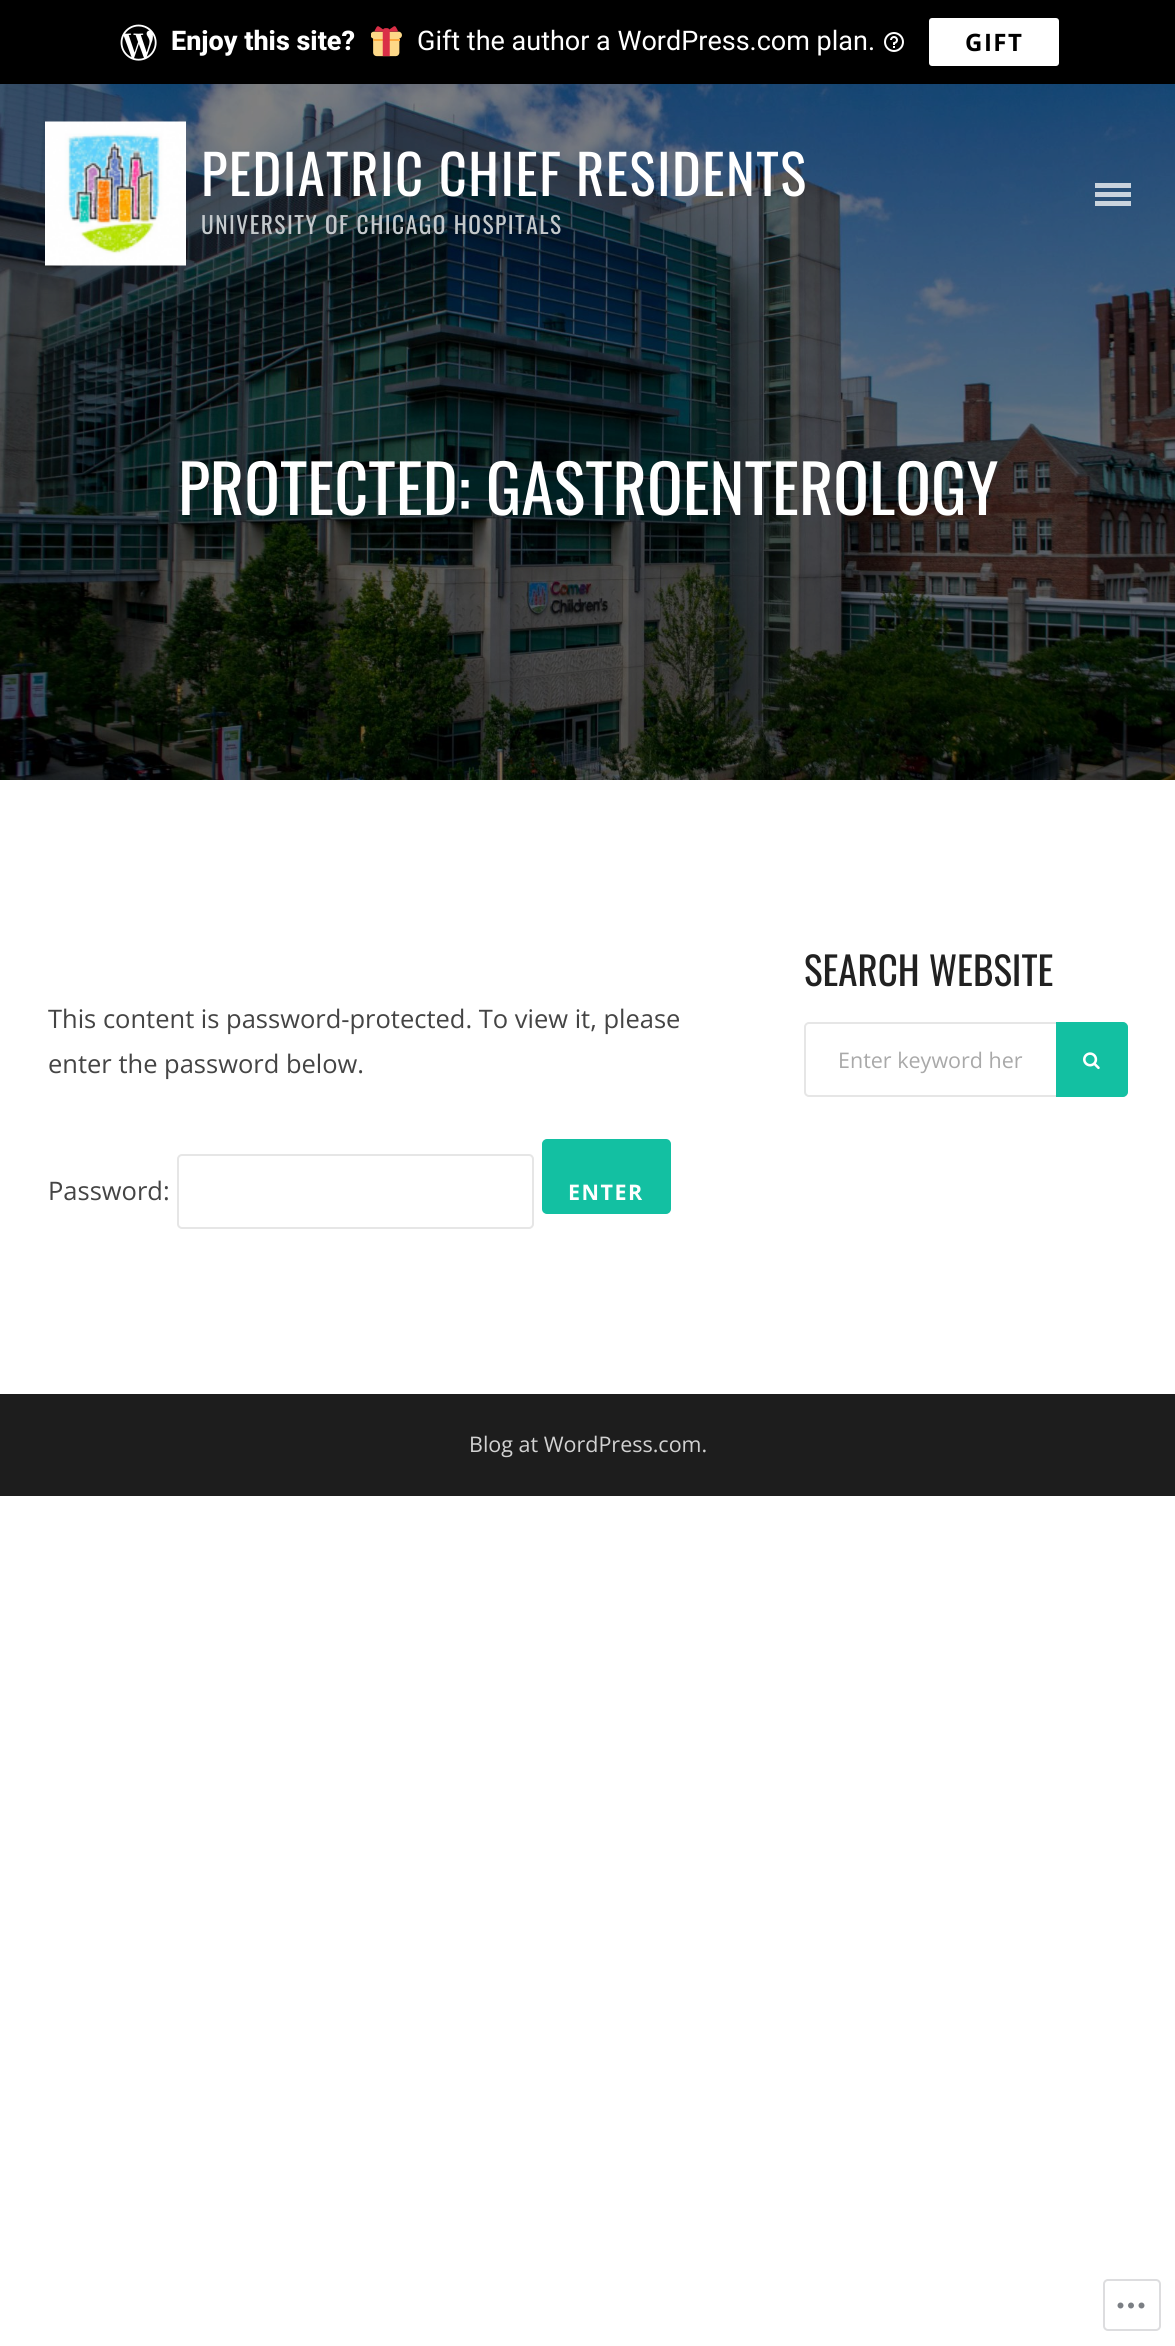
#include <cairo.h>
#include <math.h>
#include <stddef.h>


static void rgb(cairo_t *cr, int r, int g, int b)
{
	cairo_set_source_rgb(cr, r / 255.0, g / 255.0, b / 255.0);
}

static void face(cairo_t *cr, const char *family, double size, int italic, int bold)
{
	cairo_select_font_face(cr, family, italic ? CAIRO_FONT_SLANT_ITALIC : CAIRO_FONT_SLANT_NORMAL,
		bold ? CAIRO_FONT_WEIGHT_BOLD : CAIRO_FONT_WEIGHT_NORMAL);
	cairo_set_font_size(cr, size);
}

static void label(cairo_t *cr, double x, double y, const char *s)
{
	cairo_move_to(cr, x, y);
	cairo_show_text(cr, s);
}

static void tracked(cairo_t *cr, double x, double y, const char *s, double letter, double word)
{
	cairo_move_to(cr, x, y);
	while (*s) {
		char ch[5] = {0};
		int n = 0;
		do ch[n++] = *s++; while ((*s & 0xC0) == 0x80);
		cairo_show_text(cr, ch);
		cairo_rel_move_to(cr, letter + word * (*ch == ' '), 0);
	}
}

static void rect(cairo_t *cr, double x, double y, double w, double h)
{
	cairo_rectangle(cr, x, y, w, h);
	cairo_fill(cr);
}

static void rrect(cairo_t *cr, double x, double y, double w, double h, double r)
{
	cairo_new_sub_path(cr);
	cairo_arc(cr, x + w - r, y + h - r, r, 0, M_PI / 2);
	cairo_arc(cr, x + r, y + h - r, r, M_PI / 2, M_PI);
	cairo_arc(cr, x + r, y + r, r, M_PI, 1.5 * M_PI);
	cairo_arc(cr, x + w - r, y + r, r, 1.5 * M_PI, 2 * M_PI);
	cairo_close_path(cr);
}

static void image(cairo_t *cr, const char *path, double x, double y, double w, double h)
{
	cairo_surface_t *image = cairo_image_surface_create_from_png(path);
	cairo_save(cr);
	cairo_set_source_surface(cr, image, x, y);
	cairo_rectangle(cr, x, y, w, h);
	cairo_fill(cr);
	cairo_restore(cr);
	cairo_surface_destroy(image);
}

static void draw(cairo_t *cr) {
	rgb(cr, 255, 255, 255);
	cairo_paint(cr);
	rgb(cr, 0, 0, 0);
	rect(cr, 0, 0, 1175, 84);
	image(cr, "image0.png", 120, 24, 37, 37);
	face(cr, "Roboto ExtraBold", 27, 0, 0);
	rgb(cr, 255, 255, 255);
	label(cr, 171, 50, "Enjoy this site?");
	image(cr, "image1.png", 371, 26, 31, 31);
	face(cr, "Roboto", 27, 0, 0);
	label(cr, 417, 50, "Gift the author a WordPress.com plan.");
	image(cr, "image2.png", 884, 32, 20, 20);
	rrect(cr, 929, 18, 130, 48, 3);
	cairo_fill(cr);
	face(cr, "Open Sans", 24, 0, 1);
	rgb(cr, 0, 0, 0);
	tracked(cr, 965, 51, "GIFT", 1.5, 0);
	image(cr, "image3.png", 0, 84, 1175, 696);
	image(cr, "image4.png", 45, 121, 141, 145);
	face(cr, "Oswald", 54.6, 0, 0);
	rgb(cr, 255, 255, 255);
	tracked(cr, 201, 196, "PEDIATRIC CHIEF RESIDENTS", 1.5, 0);
	face(cr, "Oswald", 23.4, 0, 0);
	rgb(cr, 196, 201, 204);
	tracked(cr, 201, 234, "UNIVERSITY OF CHICAGO HOSPITALS", 1.5, 0);
	cairo_set_source_rgba(cr, 1, 1, 1, 0.75);
	rect(cr, 1095, 183, 36, 5);
	rect(cr, 1095, 192, 36, 5);
	rect(cr, 1095, 201, 36, 5);
	face(cr, "Oswald", 66.25, 0, 0);
	rgb(cr, 255, 255, 255);
	label(cr, 178, 515, "PROTECTED: GASTROENTEROLOGY");
	face(cr, "Open Sans", 25.5, 0, 0);
	rgb(cr, 68, 68, 68);
	label(cr, 48, 1028, "This content is password-protected. To view it, please");
	label(cr, 48, 1073, "enter the password below.");
	label(cr, 48, 1200, "Password:");
	rrect(cr, 178, 1155, 355, 73, 4);
	rgb(cr, 230, 230, 230);
	cairo_stroke(cr);
	rgb(cr, 19, 192, 162);
	rrect(cr, 543, 1140, 127, 73, 4);
	cairo_fill_preserve(cr);
	cairo_stroke(cr);
	face(cr, "Open Sans", 21.5, 0, 1);
	rgb(cr, 255, 255, 255);
	tracked(cr, 568, 1200, "ENTER", 1.5, 0);
	face(cr, "Oswald", 39, 0, 0);
	rgb(cr, 33, 33, 33);
	label(cr, 804, 986, "SEARCH WEBSITE");
	rrect(cr, 805, 1023, 322, 73, 4);
	rgb(cr, 230, 230, 230);
	cairo_stroke(cr);
	face(cr, "Open Sans", 21.5, 0, 0);
	rgb(cr, 169, 169, 169);
	label(cr, 838, 1068, "Enter keyword her");
	rgb(cr, 19, 192, 162);
	cairo_new_path(cr);
	cairo_move_to(cr, 1057, 1023);
	cairo_line_to(cr, 1123, 1023);
	cairo_curve_to(cr, 1125, 1023, 1127, 1025, 1127, 1027);
	cairo_line_to(cr, 1127, 1092);
	cairo_curve_to(cr, 1127, 1094, 1125, 1096, 1123, 1096);
	cairo_line_to(cr, 1057, 1096);
	cairo_close_path(cr);
	cairo_fill_preserve(cr);
	cairo_stroke(cr);
	image(cr, "image5.png", 1083, 1052, 17, 18);
	rgb(cr, 29, 29, 29);
	rect(cr, 0, 1394, 1175, 102);
	rgb(cr, 210, 210, 210);
	label(cr, 469, 1452, "Blog at WordPress.com.");
	rrect(cr, 1104, 2280, 56, 50, 4);
	rgb(cr, 221, 221, 223);
	cairo_stroke(cr);
	image(cr, "image6.png", 1117, 2302, 28, 7);
}

int main(void) {
	cairo_surface_t *surface = cairo_image_surface_create(CAIRO_FORMAT_RGB24, 1175, 2346);
	cairo_t *cr = cairo_create(surface);
	cairo_font_options_t *options = cairo_font_options_create();
	cairo_font_options_set_hint_metrics(options, CAIRO_HINT_METRICS_OFF);
	cairo_font_options_set_hint_style(options, CAIRO_HINT_STYLE_NONE);
	cairo_set_font_options(cr, options);
	cairo_set_miter_limit(cr, 4);
	draw(cr);
	cairo_surface_write_to_png(surface, "render.png");
	cairo_font_options_destroy(options);
	cairo_destroy(cr);
	cairo_surface_destroy(surface);
	return 0;
}
